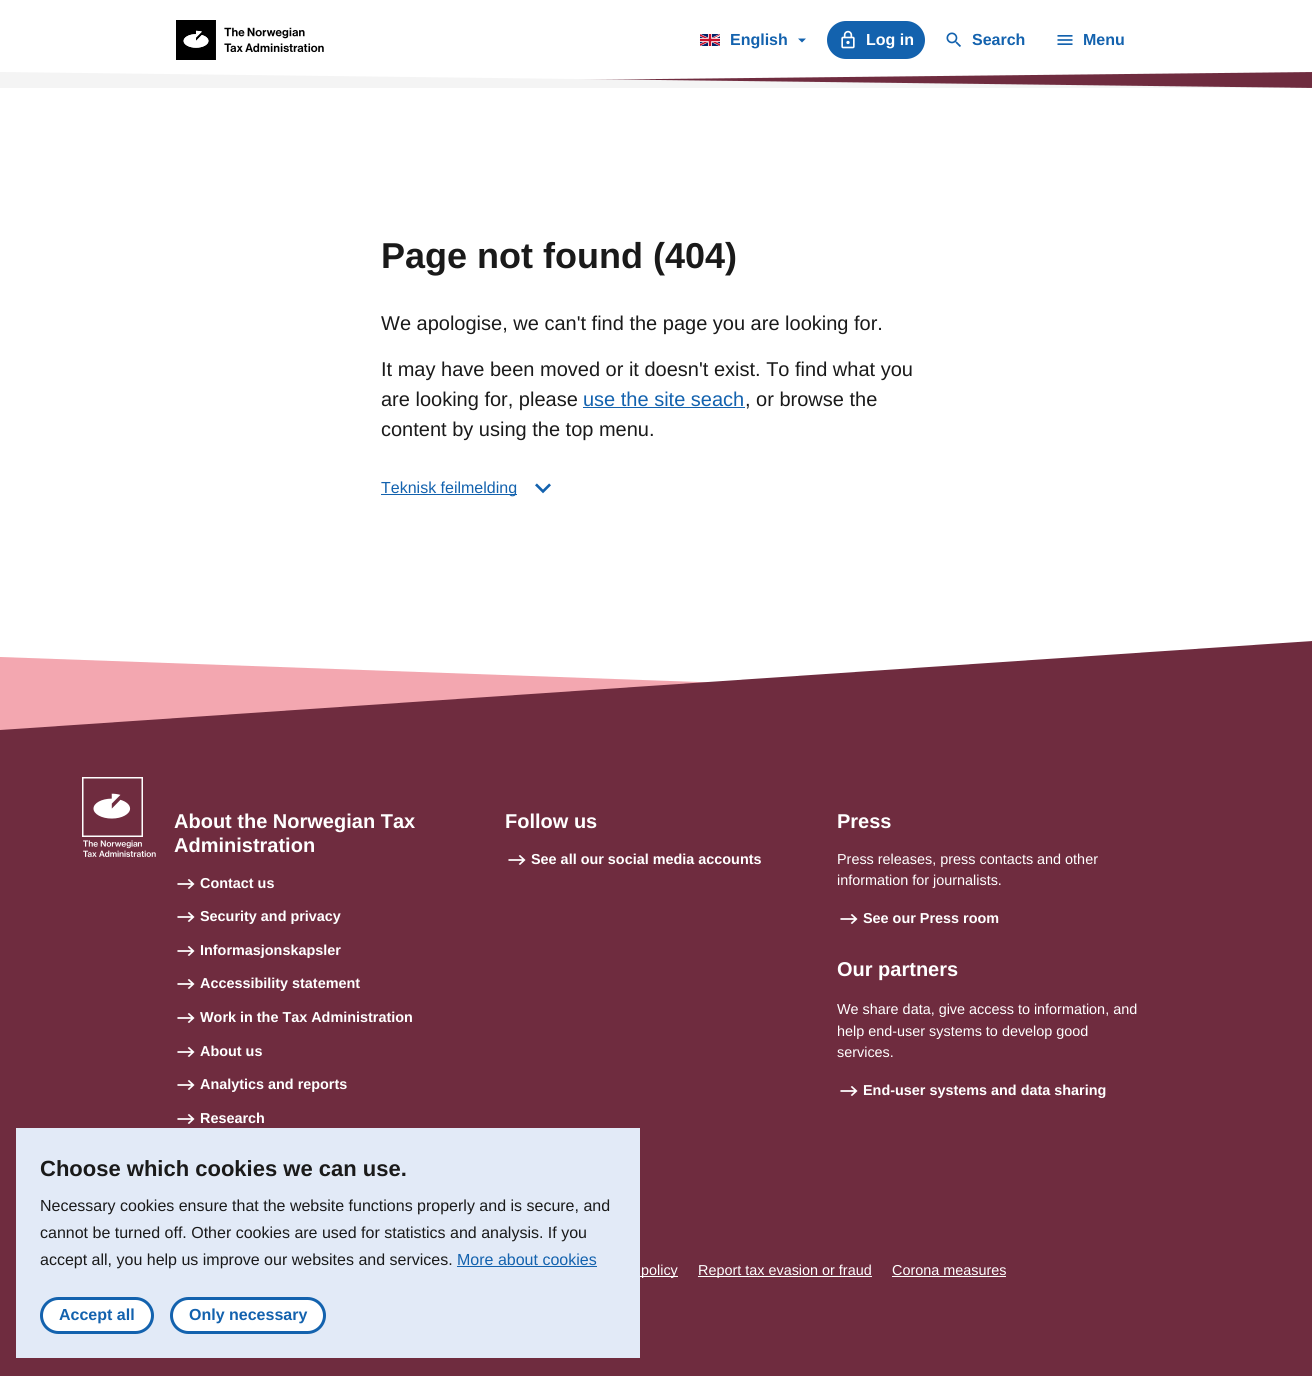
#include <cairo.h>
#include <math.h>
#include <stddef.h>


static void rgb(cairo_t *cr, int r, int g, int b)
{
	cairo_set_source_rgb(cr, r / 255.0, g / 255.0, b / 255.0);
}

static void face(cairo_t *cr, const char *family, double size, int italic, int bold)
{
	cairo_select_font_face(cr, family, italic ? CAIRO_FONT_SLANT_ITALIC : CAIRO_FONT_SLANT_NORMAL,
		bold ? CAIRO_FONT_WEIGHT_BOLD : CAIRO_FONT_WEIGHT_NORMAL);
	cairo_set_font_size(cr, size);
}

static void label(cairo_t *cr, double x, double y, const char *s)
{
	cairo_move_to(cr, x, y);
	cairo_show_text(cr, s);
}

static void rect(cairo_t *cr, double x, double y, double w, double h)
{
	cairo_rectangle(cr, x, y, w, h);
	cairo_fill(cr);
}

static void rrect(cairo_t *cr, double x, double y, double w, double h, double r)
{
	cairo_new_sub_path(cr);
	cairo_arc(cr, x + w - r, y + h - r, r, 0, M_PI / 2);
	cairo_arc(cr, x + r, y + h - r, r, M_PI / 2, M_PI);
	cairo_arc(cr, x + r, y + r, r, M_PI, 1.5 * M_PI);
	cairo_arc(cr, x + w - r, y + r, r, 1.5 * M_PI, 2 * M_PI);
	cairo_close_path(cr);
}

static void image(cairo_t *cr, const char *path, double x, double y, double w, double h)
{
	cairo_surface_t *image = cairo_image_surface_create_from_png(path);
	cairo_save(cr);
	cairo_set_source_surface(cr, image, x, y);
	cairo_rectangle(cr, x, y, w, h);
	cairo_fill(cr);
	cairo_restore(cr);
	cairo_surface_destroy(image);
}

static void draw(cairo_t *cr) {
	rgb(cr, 255, 255, 255);
	cairo_paint(cr);
	image(cr, "image0.png", 176, 20, 148, 40);
	image(cr, "image1.png", 700, 34, 20, 12);
	face(cr, "Liberation Sans", 16, 0, 1);
	rgb(cr, 19, 98, 174);
	label(cr, 730, 45, "English");
	cairo_new_path(cr);
	cairo_move_to(cr, 798, 38.5);
	cairo_line_to(cr, 802, 42.5);
	cairo_line_to(cr, 806, 38.5);
	cairo_close_path(cr);
	cairo_fill(cr);
	rrect(cr, 828.5, 22.5, 95, 35, 17.5);
	cairo_fill_preserve(cr);
	cairo_set_line_width(cr, 3);
	cairo_stroke(cr);
	image(cr, "image2.png", 841, 30, 14, 19);
	rgb(cr, 255, 255, 255);
	label(cr, 866, 45, "Log in");
	image(cr, "image3.png", 946, 32, 15, 15);
	rgb(cr, 19, 98, 174);
	label(cr, 972, 45, "Search");
	image(cr, "image4.png", 1057, 35, 16, 10);
	label(cr, 1083, 45, "Menu");
	rgb(cr, 111, 44, 63);
	cairo_new_path(cr);
	cairo_move_to(cr, 0, 86);
	cairo_line_to(cr, 1312, 88);
	cairo_line_to(cr, 1312, 72);
	cairo_close_path(cr);
	cairo_fill(cr);
	rgb(cr, 244, 244, 244);
	cairo_new_path(cr);
	cairo_move_to(cr, 0, 72);
	cairo_line_to(cr, 0, 88);
	cairo_line_to(cr, 1312, 88);
	cairo_close_path(cr);
	cairo_fill(cr);
	face(cr, "Liberation Sans", 36, 0, 1);
	rgb(cr, 26, 26, 26);
	label(cr, 381, 268, "Page not found (404)");
	face(cr, "Liberation Sans", 20, 0, 0);
	label(cr, 381, 330, "We apologise, we can't find the page you are looking for.");
	label(cr, 381, 376, "It may have been moved or it doesn't exist. To find what you");
	label(cr, 381, 406, "are looking for, please");
	rgb(cr, 19, 98, 174);
	label(cr, 583, 406, "use the site seach");
	rect(cr, 583, 407, 162, 1);
	rgb(cr, 26, 26, 26);
	label(cr, 745, 406, ", or browse the");
	label(cr, 381, 436, "content by using the top menu.");
	rgb(cr, 19, 98, 174);
	rect(cr, 381, 494, 136, 1);
	face(cr, "Liberation Sans", 16, 0, 0);
	label(cr, 381, 493, "Teknisk feilmelding");
	image(cr, "image5.png", 535, 483, 16, 11);
	rgb(cr, 243, 167, 176);
	cairo_set_fill_rule(cr, CAIRO_FILL_RULE_EVEN_ODD);
	cairo_new_path(cr);
	cairo_move_to(cr, 0, 732);
	cairo_line_to(cr, 1312, 732);
	cairo_line_to(cr, 1312, 704);
	cairo_line_to(cr, 0, 657);
	cairo_close_path(cr);
	cairo_fill(cr);
	cairo_save(cr);
	cairo_set_fill_rule(cr, CAIRO_FILL_RULE_WINDING);
	cairo_rectangle(cr, 0, 641, 1312, 92);
	cairo_clip(cr);
	rgb(cr, 111, 44, 63);
	cairo_set_fill_rule(cr, CAIRO_FILL_RULE_EVEN_ODD);
	cairo_new_path(cr);
	cairo_move_to(cr, 1312, 730);
	cairo_line_to(cr, 1312, 1214);
	cairo_line_to(cr, 0, 1214);
	cairo_line_to(cr, 0, 730);
	cairo_line_to(cr, 1312, 641);
	cairo_close_path(cr);
	cairo_fill(cr);
	cairo_restore(cr);
	rgb(cr, 111, 44, 63);
	rect(cr, 0, 733, 1312, 643);
	image(cr, "image6.png", 82, 777, 74, 80);
	face(cr, "Liberation Sans", 20, 0, 1);
	rgb(cr, 255, 255, 255);
	label(cr, 174, 828, "About the Norwegian Tax");
	label(cr, 174, 852, "Administration");
	image(cr, "image7.png", 177, 879, 18, 10);
	face(cr, "Liberation Sans", 14.4, 0, 1);
	label(cr, 200, 888, "Contact us");
	image(cr, "image7.png", 177, 912, 18, 10);
	label(cr, 200, 921, "Security and privacy");
	image(cr, "image7.png", 177, 946, 18, 10);
	label(cr, 200, 955, "Informasjonskapsler");
	image(cr, "image7.png", 177, 979, 18, 10);
	label(cr, 200, 988, "Accessibility statement");
	image(cr, "image7.png", 177, 1013, 18, 10);
	label(cr, 200, 1022, "Work in the Tax Administration");
	image(cr, "image7.png", 177, 1047, 18, 10);
	label(cr, 200, 1056, "About us");
	image(cr, "image7.png", 177, 1080, 18, 10);
	label(cr, 200, 1089, "Analytics and reports");
	image(cr, "image7.png", 177, 1114, 18, 10);
	label(cr, 200, 1123, "Research");
	face(cr, "Liberation Sans", 20, 0, 1);
	label(cr, 505, 828, "Follow us");
	image(cr, "image7.png", 508, 855, 18, 10);
	face(cr, "Liberation Sans", 14.4, 0, 1);
	label(cr, 531, 864, "See all our social media accounts");
	face(cr, "Liberation Sans", 20, 0, 1);
	label(cr, 837, 828, "Press");
	face(cr, "Liberation Sans", 14.4, 0, 0);
	label(cr, 837, 864, "Press releases, press contacts and other");
	label(cr, 837, 885, "information for journalists.");
	image(cr, "image7.png", 840, 914, 18, 10);
	face(cr, "Liberation Sans", 14.4, 0, 1);
	label(cr, 863, 923, "See our Press room");
	face(cr, "Liberation Sans", 20, 0, 1);
	label(cr, 837, 976, "Our partners");
	face(cr, "Liberation Sans", 14.4, 0, 0);
	label(cr, 837, 1014, "We share data, give access to information, and");
	label(cr, 837, 1036, "help end-user systems to develop good");
	label(cr, 837, 1057, "services.");
	image(cr, "image7.png", 840, 1086, 18, 10);
	face(cr, "Liberation Sans", 14.4, 0, 1);
	label(cr, 863, 1095, "End-user systems and data sharing");
	rect(cr, 640, 1276, 38, 1);
	face(cr, "Liberation Sans", 14.4, 0, 0);
	label(cr, 641, 1275, "policy");
	rect(cr, 698, 1276, 174, 1);
	label(cr, 698, 1275, "Report tax evasion or fraud");
	label(cr, 892, 1275, "Corona measures");
	rect(cr, 892, 1276, 114, 1);
	rgb(cr, 226, 234, 247);
	rect(cr, 16, 1128, 624, 230);
	face(cr, "Liberation Sans", 22, 0, 1);
	rgb(cr, 26, 26, 26);
	label(cr, 40, 1176, "Choose which cookies we can use.");
	face(cr, "Liberation Sans", 16, 0, 0);
	label(cr, 40, 1211, "Necessary cookies ensure that the website functions properly and is secure, and");
	label(cr, 40, 1238, "cannot be turned off. Other cookies are used for statistics and analysis. If you");
	label(cr, 40, 1265, "accept all, you help us improve our websites and services.");
	rgb(cr, 19, 98, 174);
	label(cr, 457, 1265, "More about cookies");
	rect(cr, 457, 1266, 140, 1);
	rgb(cr, 255, 255, 255);
	rrect(cr, 41.5, 1298.5, 111, 34, 17);
	cairo_fill_preserve(cr);
	rgb(cr, 19, 98, 174);
	cairo_stroke(cr);
	face(cr, "Liberation Sans", 16, 0, 1);
	label(cr, 59, 1320, "Accept all");
	rgb(cr, 255, 255, 255);
	rrect(cr, 171.5, 1298.5, 153, 34, 17);
	cairo_fill_preserve(cr);
	rgb(cr, 19, 98, 174);
	cairo_stroke(cr);
	label(cr, 189, 1320, "Only necessary");
}

int main(void) {
	cairo_surface_t *surface = cairo_image_surface_create(CAIRO_FORMAT_RGB24, 1312, 1376);
	cairo_t *cr = cairo_create(surface);
	cairo_font_options_t *options = cairo_font_options_create();
	cairo_font_options_set_hint_metrics(options, CAIRO_HINT_METRICS_OFF);
	cairo_font_options_set_hint_style(options, CAIRO_HINT_STYLE_NONE);
	cairo_set_font_options(cr, options);
	cairo_set_miter_limit(cr, 4);
	draw(cr);
	cairo_surface_write_to_png(surface, "render.png");
	cairo_font_options_destroy(options);
	cairo_destroy(cr);
	cairo_surface_destroy(surface);
	return 0;
}
